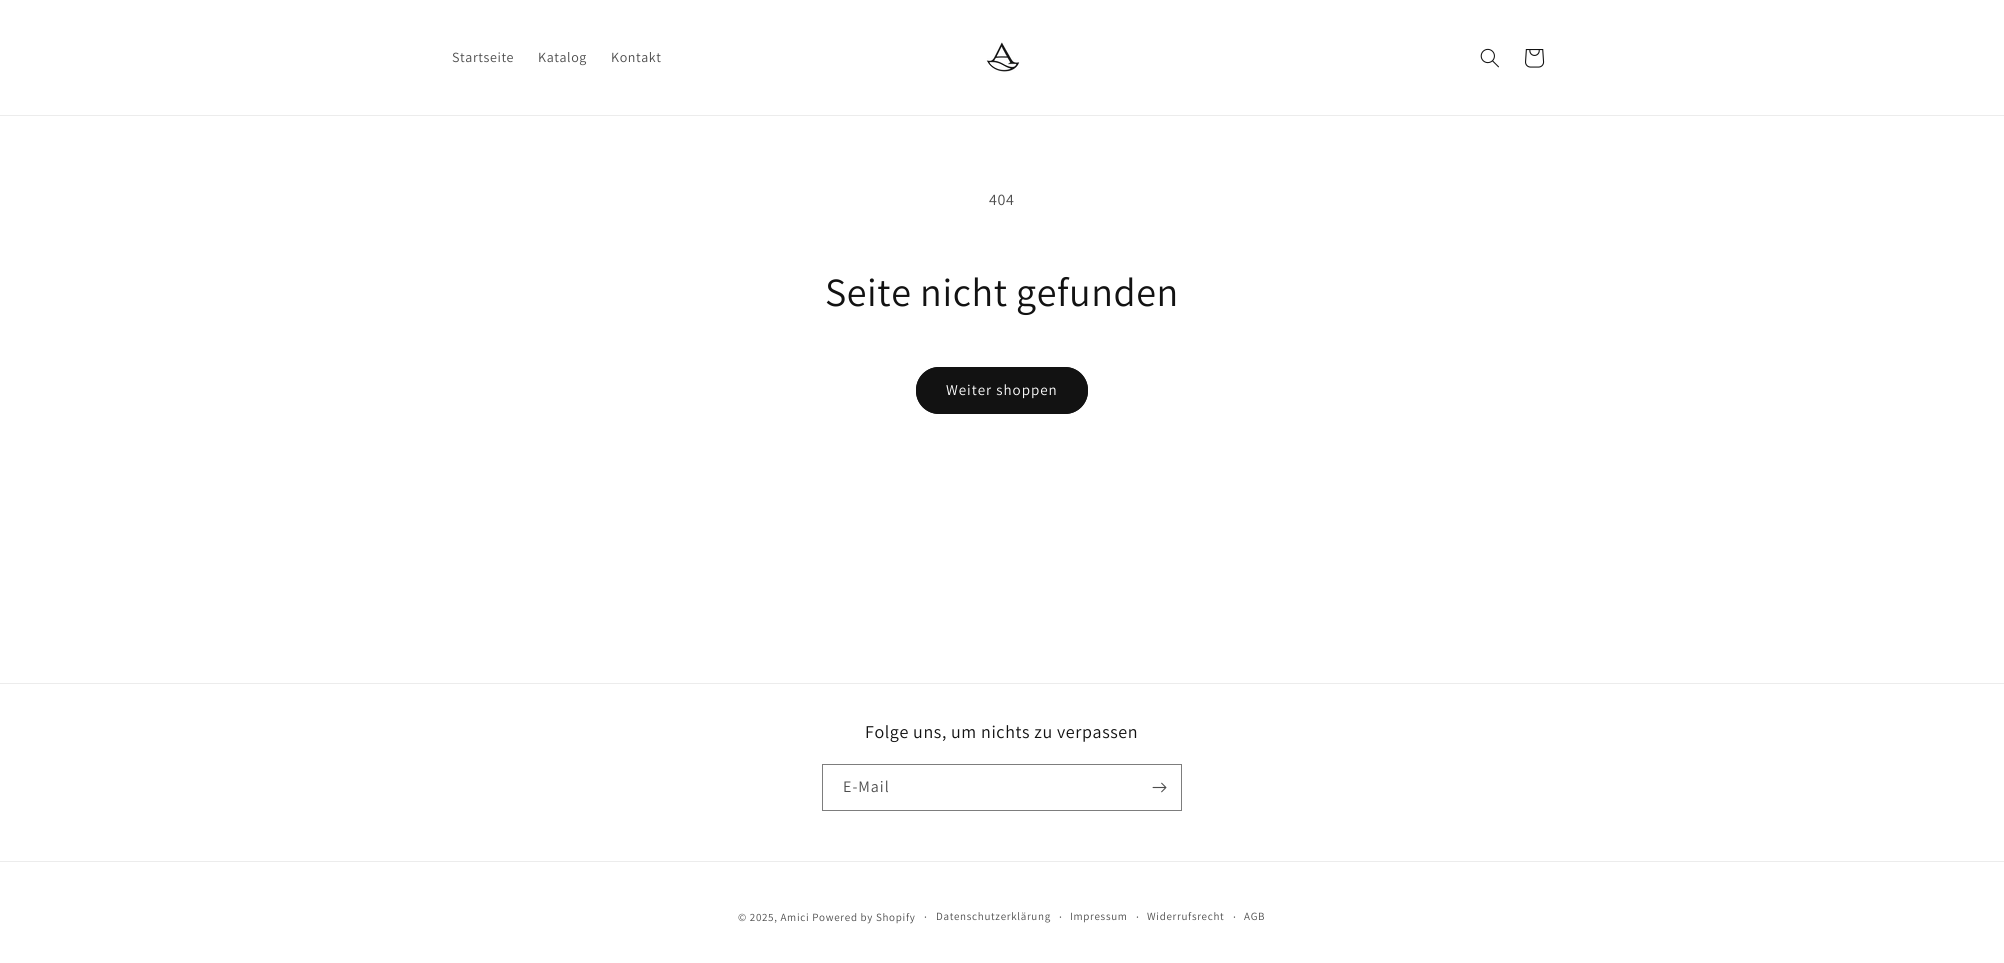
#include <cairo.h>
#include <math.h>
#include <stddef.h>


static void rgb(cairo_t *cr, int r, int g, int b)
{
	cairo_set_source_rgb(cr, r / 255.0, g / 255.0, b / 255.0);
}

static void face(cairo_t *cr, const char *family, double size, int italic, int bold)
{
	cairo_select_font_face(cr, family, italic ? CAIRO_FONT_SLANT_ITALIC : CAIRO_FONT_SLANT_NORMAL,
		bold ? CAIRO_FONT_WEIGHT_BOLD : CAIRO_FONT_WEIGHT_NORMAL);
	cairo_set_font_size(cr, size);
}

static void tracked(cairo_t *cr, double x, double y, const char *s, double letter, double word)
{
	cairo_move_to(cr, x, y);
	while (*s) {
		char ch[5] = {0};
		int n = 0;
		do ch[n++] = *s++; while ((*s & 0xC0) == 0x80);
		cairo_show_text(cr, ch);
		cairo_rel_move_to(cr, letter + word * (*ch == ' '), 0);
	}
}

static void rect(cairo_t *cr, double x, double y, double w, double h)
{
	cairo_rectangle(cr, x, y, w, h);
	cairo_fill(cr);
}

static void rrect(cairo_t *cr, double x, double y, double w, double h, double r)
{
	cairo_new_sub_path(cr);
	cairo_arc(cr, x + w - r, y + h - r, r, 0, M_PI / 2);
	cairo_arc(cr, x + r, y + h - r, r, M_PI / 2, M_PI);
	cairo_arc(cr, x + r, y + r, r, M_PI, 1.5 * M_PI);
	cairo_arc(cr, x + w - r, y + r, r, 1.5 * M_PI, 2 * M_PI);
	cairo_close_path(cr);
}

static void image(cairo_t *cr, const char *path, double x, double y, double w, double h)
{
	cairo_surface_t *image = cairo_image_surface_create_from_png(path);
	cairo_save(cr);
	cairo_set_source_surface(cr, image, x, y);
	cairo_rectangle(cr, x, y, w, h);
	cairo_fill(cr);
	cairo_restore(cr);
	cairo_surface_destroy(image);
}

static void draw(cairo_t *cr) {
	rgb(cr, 255, 255, 255);
	cairo_paint(cr);
	rgb(cr, 236, 236, 236);
	rect(cr, 0, 115, 2004, 1);
	face(cr, "Assistant", 14, 0, 0);
	rgb(cr, 77, 77, 77);
	tracked(cr, 452, 62, "Startseite", 0.6, 0);
	tracked(cr, 538, 62, "Katalog", 0.6, 0);
	tracked(cr, 611, 62, "Kontakt", 0.6, 0);
	image(cr, "image0.png", 986, 42, 34, 30);
	image(cr, "image1.png", 1480, 48, 19, 20);
	image(cr, "image2.png", 1525, 49, 20, 19);
	face(cr, "Assistant", 16, 0, 0);
	tracked(cr, 989, 205, "404", 0.6, 0);
	face(cr, "Assistant", 40, 0, 0);
	rgb(cr, 18, 18, 18);
	tracked(cr, 825, 306, "Seite nicht gefunden", 0.6, 0);
	rrect(cr, 916, 367, 172, 47, 23);
	cairo_fill(cr);
	rrect(cr, 916.5, 367.5, 171, 46, 22.5);
	cairo_set_line_width(cr, 1);
	cairo_stroke(cr);
	face(cr, "Assistant", 15, 0, 0);
	rgb(cr, 255, 255, 255);
	tracked(cr, 946, 395, "Weiter shoppen", 1, 0);
	rgb(cr, 236, 236, 236);
	rect(cr, 0, 683, 2004, 1);
	face(cr, "Assistant", 18, 0, 0);
	rgb(cr, 18, 18, 18);
	tracked(cr, 865, 738, "Folge uns, um nichts zu verpassen", 0.6, 0);
	cairo_rectangle(cr, 822.5, 764.5, 359, 46);
	rgb(cr, 125, 125, 125);
	cairo_stroke(cr);
	face(cr, "Assistant", 16, 0, 0);
	rgb(cr, 77, 77, 77);
	tracked(cr, 843, 792, "E-Mail", 1, 0);
	image(cr, "image3.png", 1152, 782, 15, 11);
	rgb(cr, 236, 236, 236);
	rect(cr, 0, 861, 2004, 1);
	face(cr, "Assistant", 11, 0, 0);
	rgb(cr, 77, 77, 77);
	tracked(cr, 738, 921, "© 2025, Amici Powered by Shopify", 0.7, 0);
	face(cr, "Assistant", 12, 0, 0);
	tracked(cr, 924, 921, "·", 0.7, 0);
	face(cr, "Assistant", 11, 0, 0);
	tracked(cr, 936, 920, "Datenschutzerklärung", 0.7, 0);
	face(cr, "Assistant", 12, 0, 0);
	tracked(cr, 1059, 921, "·", 0.7, 0);
	face(cr, "Assistant", 11, 0, 0);
	tracked(cr, 1070, 920, "Impressum", 0.7, 0);
	face(cr, "Assistant", 12, 0, 0);
	tracked(cr, 1136, 921, "·", 0.7, 0);
	face(cr, "Assistant", 11, 0, 0);
	tracked(cr, 1147, 920, "Widerrufsrecht", 0.7, 0);
	face(cr, "Assistant", 12, 0, 0);
	tracked(cr, 1233, 921, "·", 0.7, 0);
	face(cr, "Assistant", 11, 0, 0);
	tracked(cr, 1244, 920, "AGB", 0.7, 0);
}

int main(void) {
	cairo_surface_t *surface = cairo_image_surface_create(CAIRO_FORMAT_RGB24, 2004, 963);
	cairo_t *cr = cairo_create(surface);
	cairo_font_options_t *options = cairo_font_options_create();
	cairo_font_options_set_hint_metrics(options, CAIRO_HINT_METRICS_OFF);
	cairo_font_options_set_hint_style(options, CAIRO_HINT_STYLE_NONE);
	cairo_set_font_options(cr, options);
	cairo_set_miter_limit(cr, 4);
	draw(cr);
	cairo_surface_write_to_png(surface, "render.png");
	cairo_font_options_destroy(options);
	cairo_destroy(cr);
	cairo_surface_destroy(surface);
	return 0;
}
